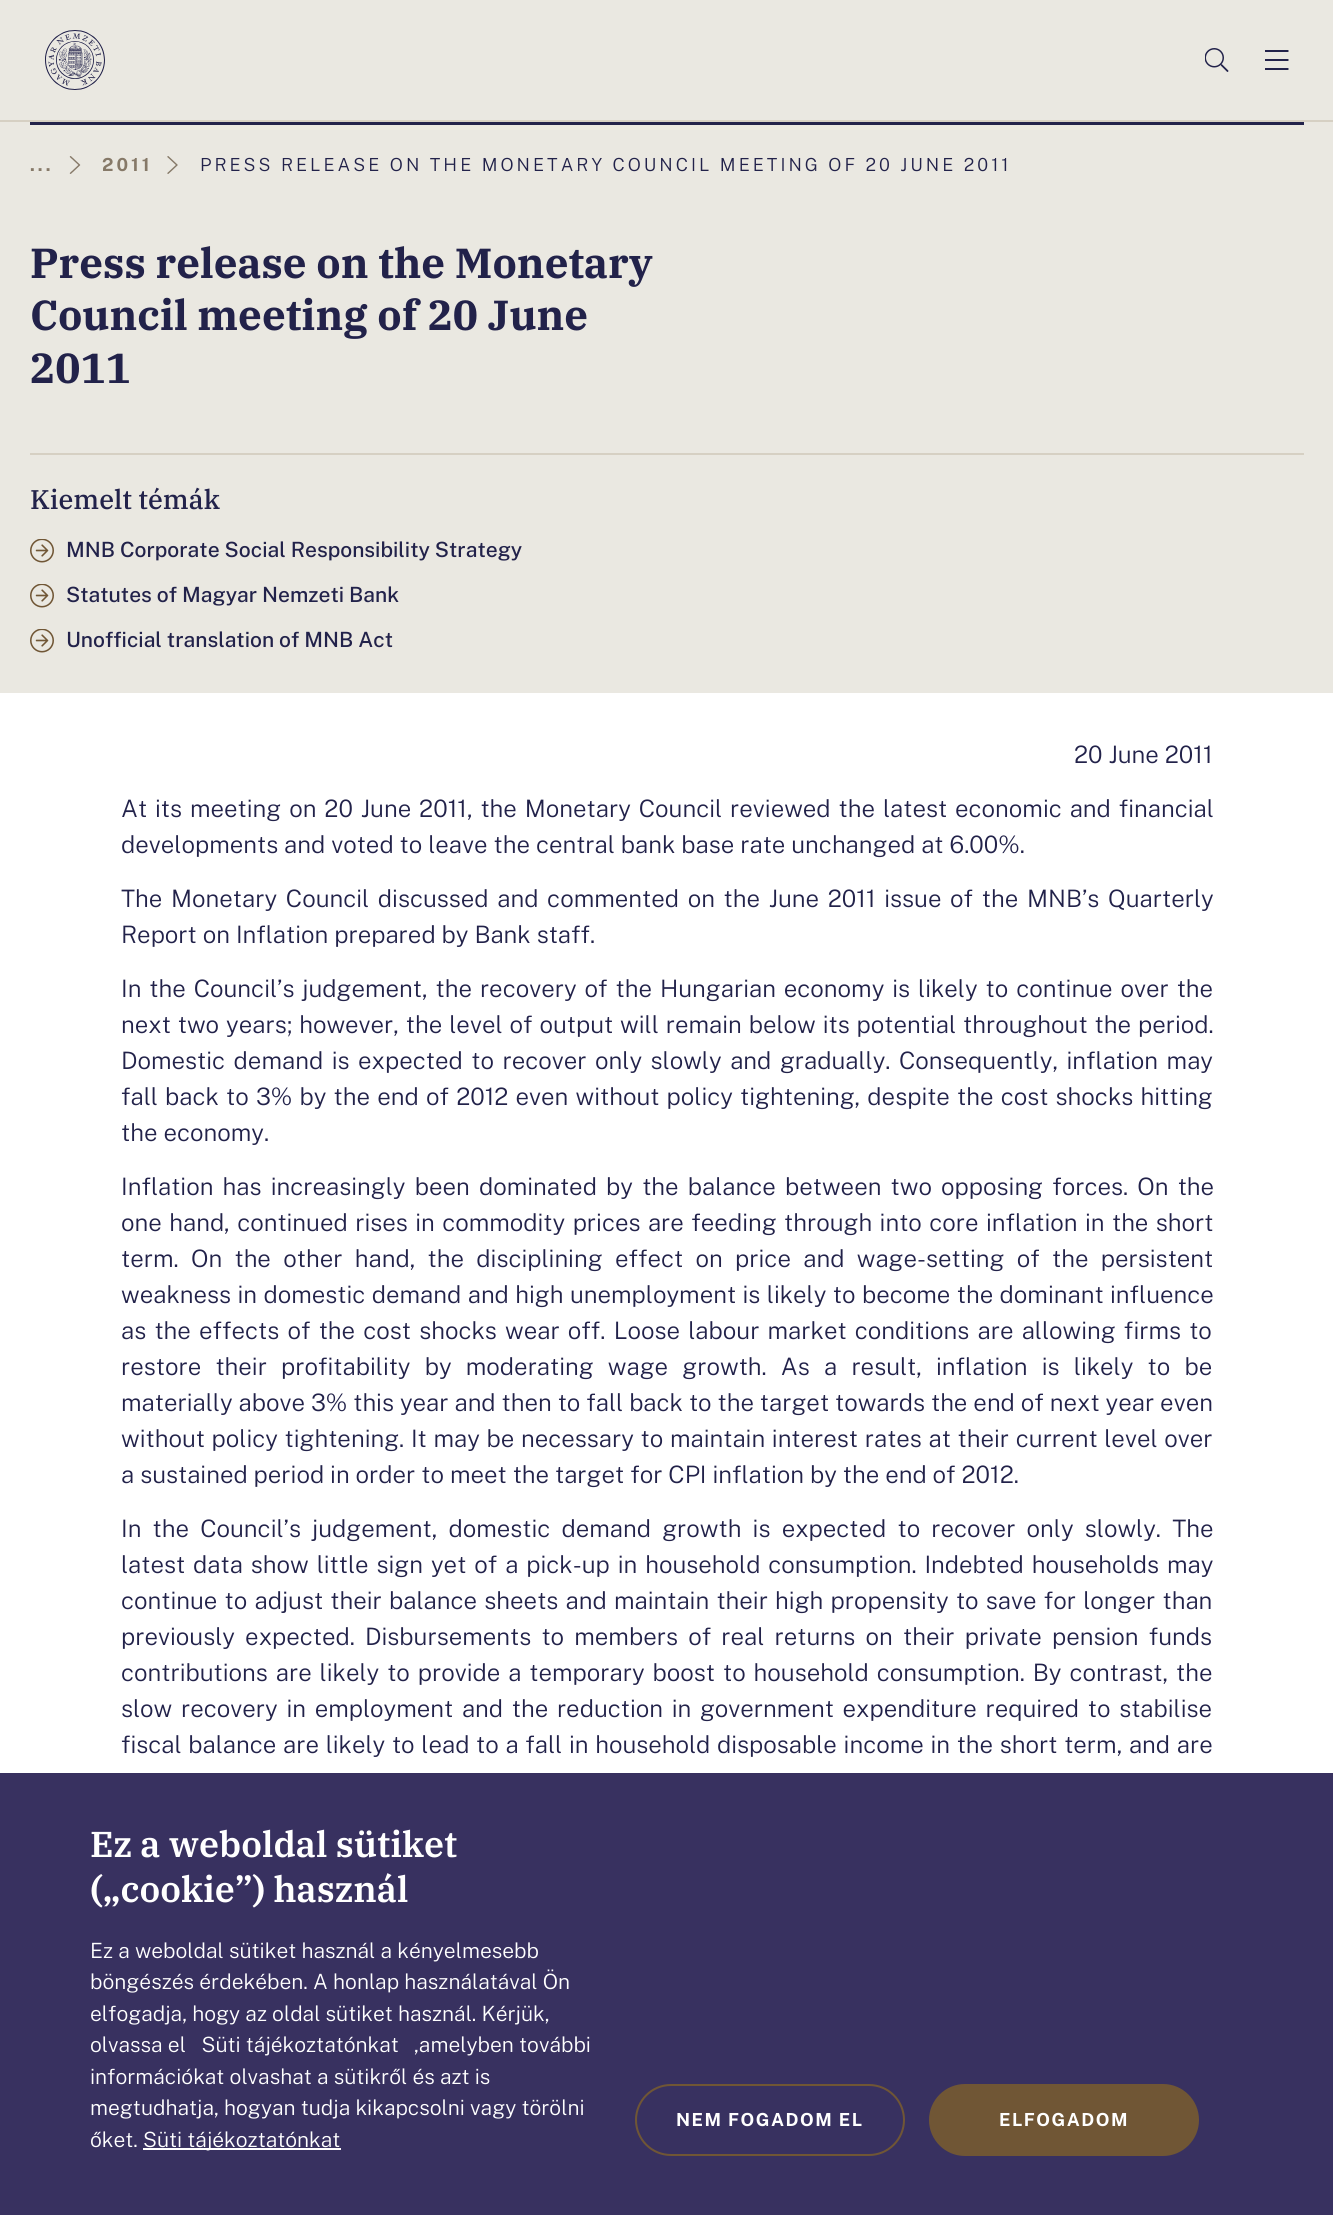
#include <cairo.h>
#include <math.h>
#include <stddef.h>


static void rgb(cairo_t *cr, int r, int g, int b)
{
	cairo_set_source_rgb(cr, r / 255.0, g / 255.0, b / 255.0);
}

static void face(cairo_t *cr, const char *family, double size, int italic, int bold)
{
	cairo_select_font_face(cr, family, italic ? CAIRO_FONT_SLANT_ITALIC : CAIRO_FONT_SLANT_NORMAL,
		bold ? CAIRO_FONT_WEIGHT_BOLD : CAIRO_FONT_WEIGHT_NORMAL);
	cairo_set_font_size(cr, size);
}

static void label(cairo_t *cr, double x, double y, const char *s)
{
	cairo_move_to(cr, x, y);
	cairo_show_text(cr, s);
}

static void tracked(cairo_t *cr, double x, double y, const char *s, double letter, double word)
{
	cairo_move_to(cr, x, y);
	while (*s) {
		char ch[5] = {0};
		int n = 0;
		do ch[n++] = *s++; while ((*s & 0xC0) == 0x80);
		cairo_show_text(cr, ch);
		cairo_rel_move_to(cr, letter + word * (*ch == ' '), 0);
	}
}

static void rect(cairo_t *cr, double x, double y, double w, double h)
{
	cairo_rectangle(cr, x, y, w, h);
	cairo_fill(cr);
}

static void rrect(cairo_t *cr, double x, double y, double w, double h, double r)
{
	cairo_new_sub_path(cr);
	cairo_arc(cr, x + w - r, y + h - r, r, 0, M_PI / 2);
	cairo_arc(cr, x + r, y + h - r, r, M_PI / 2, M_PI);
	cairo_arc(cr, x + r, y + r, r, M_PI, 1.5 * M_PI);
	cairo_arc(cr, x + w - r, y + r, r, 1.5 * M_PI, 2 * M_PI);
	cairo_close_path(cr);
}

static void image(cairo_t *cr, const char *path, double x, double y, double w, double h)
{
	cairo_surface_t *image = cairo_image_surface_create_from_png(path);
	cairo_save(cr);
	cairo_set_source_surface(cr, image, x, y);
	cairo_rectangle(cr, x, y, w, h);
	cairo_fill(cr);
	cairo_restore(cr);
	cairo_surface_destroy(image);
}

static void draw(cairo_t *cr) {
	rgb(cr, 255, 255, 255);
	cairo_paint(cr);
	rgb(cr, 234, 232, 225);
	rect(cr, 0, 0, 1333, 120);
	rgb(cr, 214, 208, 195);
	rect(cr, 0, 120, 1333, 2);
	image(cr, "image0.png", 45, 30, 60, 60);
	image(cr, "image1.png", 1205, 48, 24, 24);
	image(cr, "image2.png", 1265, 50, 24, 20);
	rgb(cr, 234, 232, 225);
	rect(cr, 0, 122, 1333, 571);
	rgb(cr, 34, 34, 74);
	rect(cr, 30, 122, 1274, 3);
	face(cr, "Public Sans", 18, 0, 1);
	rgb(cr, 134, 121, 104);
	tracked(cr, 30, 171, "...", 3, 0);
	image(cr, "image3.png", 69, 156, 12, 18);
	tracked(cr, 102, 171, "2011", 3, 0);
	image(cr, "image4.png", 167, 156, 11, 18);
	face(cr, "Public Sans Light", 18, 0, 0);
	rgb(cr, 34, 34, 74);
	tracked(cr, 200, 171, "PRESS RELEASE ON THE MONETARY COUNCIL MEETING OF 20 JUNE 2011", 3, 0);
	face(cr, "IBM Plex Serif", 42, 0, 1);
	label(cr, 30, 278, "Press release on the Monetary");
	label(cr, 30, 330, "Council meeting of 20 June");
	label(cr, 30, 383, "2011");
	rgb(cr, 214, 208, 195);
	rect(cr, 30, 453, 1274, 2);
	face(cr, "IBM Plex Serif Medium", 27, 0, 0);
	rgb(cr, 34, 34, 74);
	label(cr, 30, 509, "Kiemelt témák");
	image(cr, "image5.png", 30, 539, 24, 24);
	face(cr, "Public Sans Medium", 21, 0, 0);
	label(cr, 66, 557, "MNB Corporate Social Responsibility Strategy");
	image(cr, "image5.png", 30, 584, 24, 24);
	label(cr, 66, 602, "Statutes of Magyar Nemzeti Bank");
	image(cr, "image5.png", 30, 629, 24, 24);
	label(cr, 66, 647, "Unofficial translation of MNB Act");
	face(cr, "Public Sans Light", 24, 0, 0);
	label(cr, 1074, 763, "20 June 2011");
	tracked(cr, 121, 817, "At its meeting on 20 June 2011, the Monetary Council reviewed the latest economic and financial", 0, 2);
	label(cr, 121, 853, "developments and voted to leave the central bank base rate unchanged at 6.00%.");
	tracked(cr, 121, 907, "The Monetary Council discussed and commented on the June 2011 issue of the MNB’s Quarterly", 0, 2.75);
	label(cr, 121, 943, "Report on Inflation prepared by Bank staff.");
	tracked(cr, 121, 997, "In the Council’s judgement, the recovery of the Hungarian economy is likely to continue over the", 0, 2);
	tracked(cr, 121, 1033, "next two years; however, the level of output will remain below its potential throughout the period.", 0, 1);
	tracked(cr, 121, 1069, "Domestic demand is expected to recover only slowly and gradually. Consequently, inflation may", 0, 2.6);
	tracked(cr, 121, 1105, "fall back to 3% by the end of 2012 even without policy tightening, despite the cost shocks hitting", 0, 1.25);
	label(cr, 121, 1141, "the economy.");
	tracked(cr, 121, 1195, "Inflation has increasingly been dominated by the balance between two opposing forces. On the", 0, 3.25);
	tracked(cr, 121, 1231, "one hand, continued rises in commodity prices are feeding through into core inflation in the short", 0, 1.5);
	tracked(cr, 121, 1267, "term. On the other hand, the disciplining effect on price and wage-setting of the persistent", 0, 6.4);
	tracked(cr, 121, 1303, "weakness in domestic demand and high unemployment is likely to become the dominant influence", 0, 0.5);
	tracked(cr, 121, 1339, "as the effects of the cost shocks wear off. Loose labour market conditions are allowing firms to", 0, 2.25);
	tracked(cr, 121, 1375, "restore their profitability by moderating wage growth. As a result, inflation is likely to be", 0, 8.25);
	label(cr, 121, 1411, "materially above 3% this year and then to fall back to the target towards the end of next year even");
	tracked(cr, 121, 1447, "without policy tightening. It may be necessary to maintain interest rates at their current level over", 0, 0.75);
	label(cr, 121, 1483, "a sustained period in order to meet the target for CPI inflation by the end of 2012.");
	tracked(cr, 121, 1537, "In the Council’s judgement, domestic demand growth is expected to recover only slowly. The", 0, 5.25);
	tracked(cr, 121, 1573, "latest data show little sign yet of a pick-up in household consumption. Indebted households may", 0, 2);
	tracked(cr, 121, 1609, "continue to adjust their balance sheets and maintain their high propensity to save for longer than", 0, 1.3);
	tracked(cr, 121, 1645, "previously expected. Disbursements to members of real returns on their private pension funds", 0, 4.25);
	tracked(cr, 121, 1681, "contributions are likely to provide a temporary boost to household consumption. By contrast, the", 0, 2);
	tracked(cr, 121, 1717, "slow recovery in employment and the reduction in government expenditure required to stabilise", 0, 2.75);
	tracked(cr, 121, 1753, "fiscal balance are likely to lead to a fall in household disposable income in the short term, and are", 0, 0.75);
	cairo_set_source_rgba(cr, 0.137, 0.106, 0.31, 0.9);
	rect(cr, 0, 1773, 1333, 442);
	face(cr, "IBM Plex Serif SemiBold", 36, 0, 0);
	rgb(cr, 255, 255, 255);
	label(cr, 90, 1857, "Ez a weboldal sütiket");
	label(cr, 90, 1902, "(„cookie”) használ");
	face(cr, "Public Sans Light", 21, 0, 0);
	label(cr, 90, 1958, "Ez a weboldal sütiket használ a kényelmesebb");
	label(cr, 90, 1989, "böngészés érdekében. A honlap használatával Ön");
	label(cr, 90, 2021, "elfogadja, hogy az oldal sütiket használ. Kérjük,");
	label(cr, 90, 2052, "olvassa el   Süti tájékoztatónkat");
	label(cr, 414, 2052, ",amelyben további");
	label(cr, 90, 2084, "információkat olvashat a sütikről és azt is");
	label(cr, 90, 2115, "megtudhatja, hogyan tudja kikapcsolni vagy törölni");
	label(cr, 90, 2147, "őket.");
	rect(cr, 143, 2148, 198, 2);
	label(cr, 143, 2147, "Süti tájékoztatónkat");
	rrect(cr, 636, 2085, 268, 70, 35);
	rgb(cr, 112, 86, 53);
	cairo_stroke(cr);
	face(cr, "Public Sans", 18, 0, 1);
	rgb(cr, 255, 255, 255);
	tracked(cr, 676, 2126, "NEM FOGADOM EL", 1.5, 0);
	rgb(cr, 112, 86, 53);
	rrect(cr, 930, 2085, 268, 70, 35);
	cairo_fill_preserve(cr);
	cairo_stroke(cr);
	rgb(cr, 255, 255, 255);
	tracked(cr, 999, 2126, "ELFOGADOM", 1.5, 0);
}

int main(void) {
	cairo_surface_t *surface = cairo_image_surface_create(CAIRO_FORMAT_RGB24, 1333, 2215);
	cairo_t *cr = cairo_create(surface);
	cairo_font_options_t *options = cairo_font_options_create();
	cairo_font_options_set_hint_metrics(options, CAIRO_HINT_METRICS_OFF);
	cairo_font_options_set_hint_style(options, CAIRO_HINT_STYLE_NONE);
	cairo_set_font_options(cr, options);
	cairo_set_miter_limit(cr, 4);
	draw(cr);
	cairo_surface_write_to_png(surface, "render.png");
	cairo_font_options_destroy(options);
	cairo_destroy(cr);
	cairo_surface_destroy(surface);
	return 0;
}
